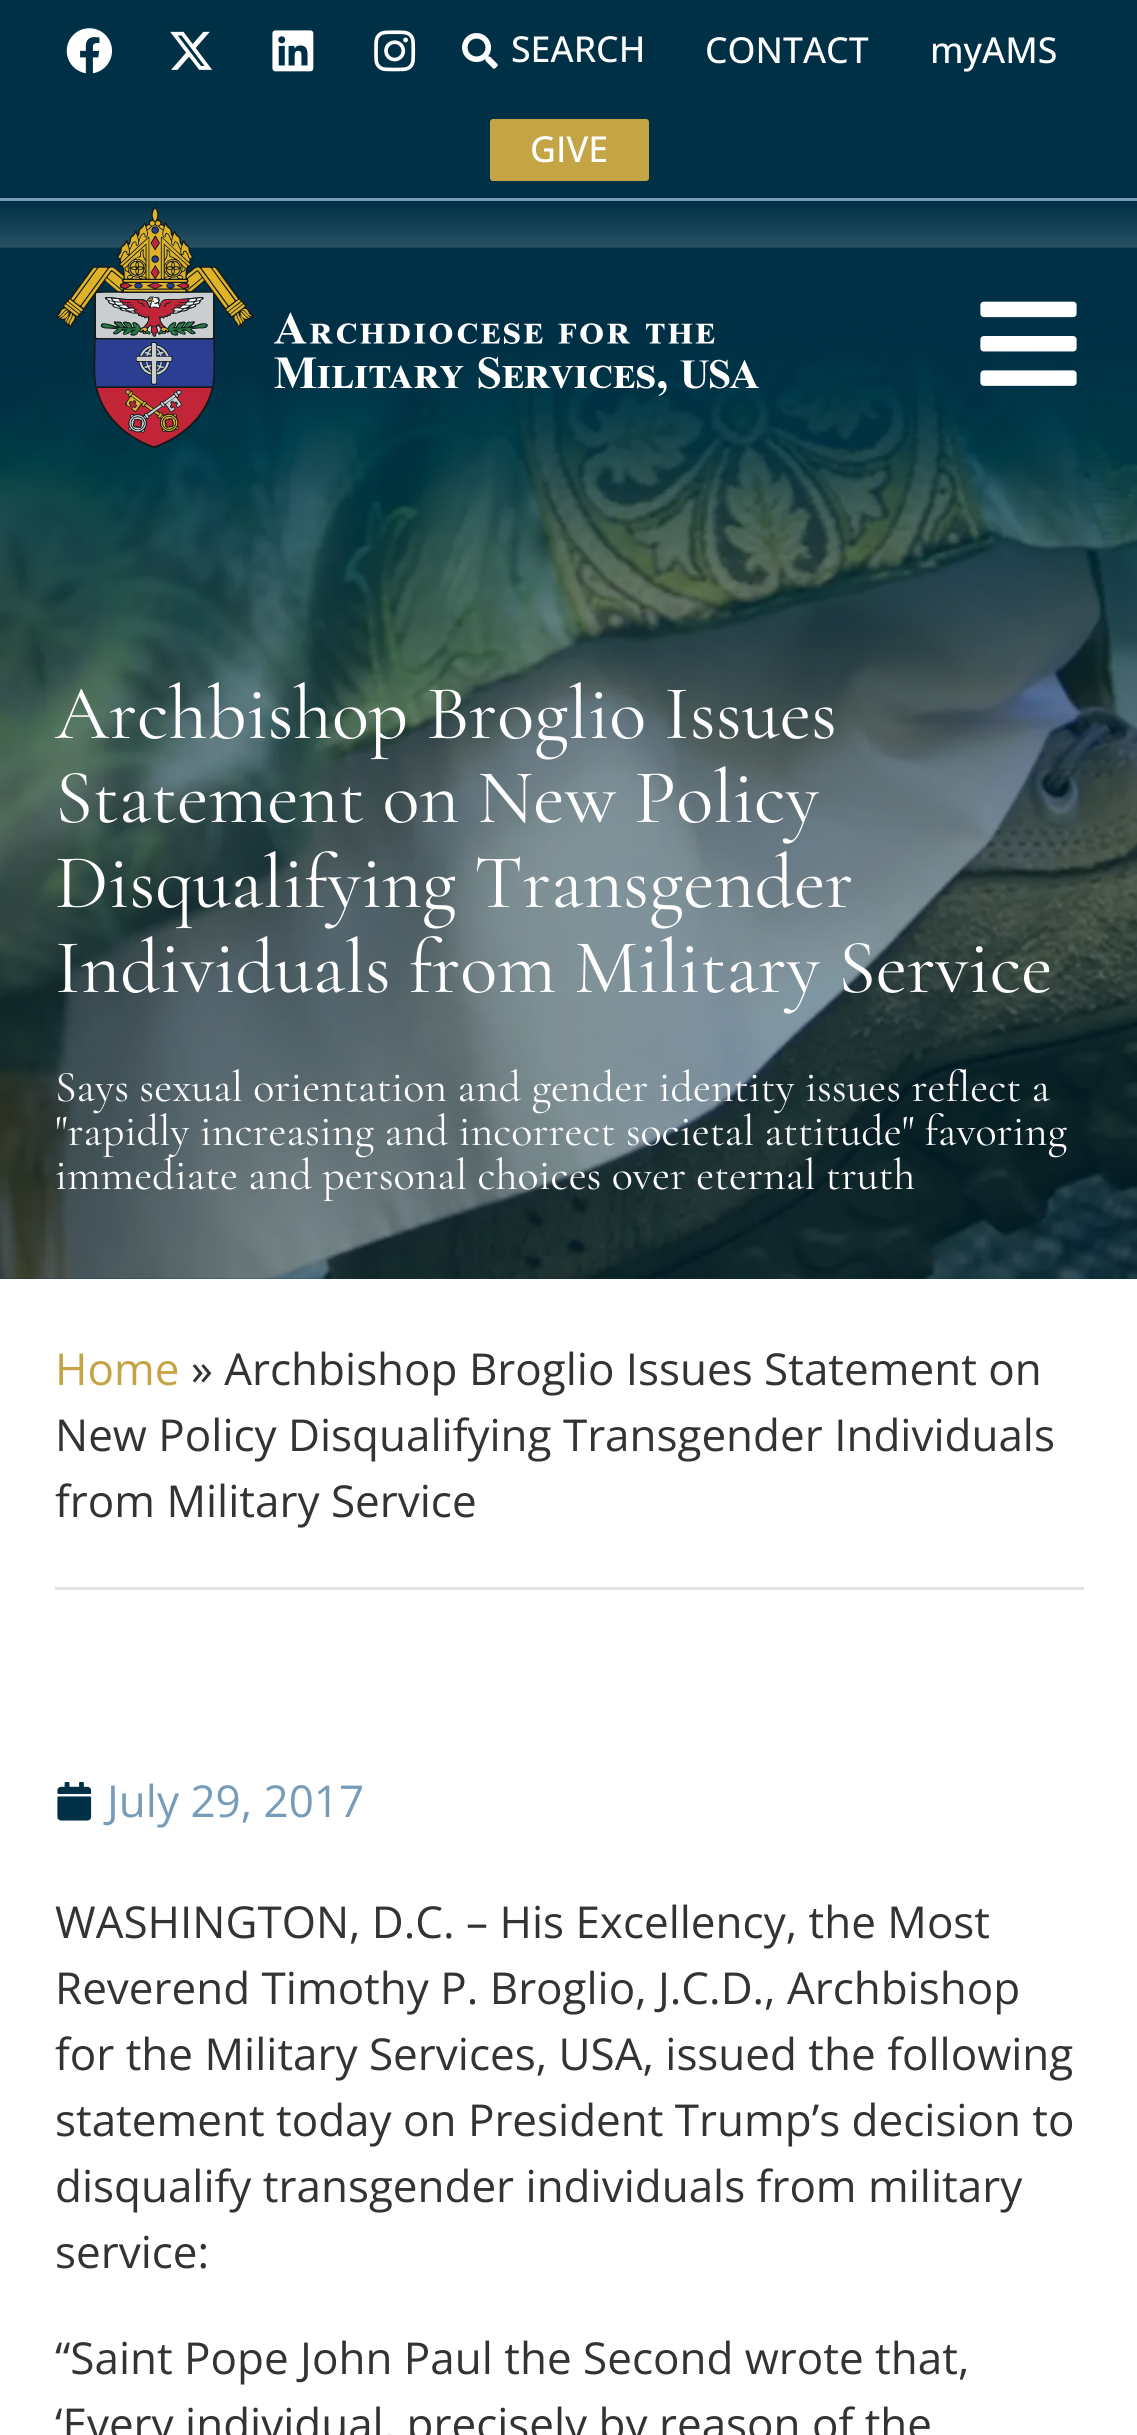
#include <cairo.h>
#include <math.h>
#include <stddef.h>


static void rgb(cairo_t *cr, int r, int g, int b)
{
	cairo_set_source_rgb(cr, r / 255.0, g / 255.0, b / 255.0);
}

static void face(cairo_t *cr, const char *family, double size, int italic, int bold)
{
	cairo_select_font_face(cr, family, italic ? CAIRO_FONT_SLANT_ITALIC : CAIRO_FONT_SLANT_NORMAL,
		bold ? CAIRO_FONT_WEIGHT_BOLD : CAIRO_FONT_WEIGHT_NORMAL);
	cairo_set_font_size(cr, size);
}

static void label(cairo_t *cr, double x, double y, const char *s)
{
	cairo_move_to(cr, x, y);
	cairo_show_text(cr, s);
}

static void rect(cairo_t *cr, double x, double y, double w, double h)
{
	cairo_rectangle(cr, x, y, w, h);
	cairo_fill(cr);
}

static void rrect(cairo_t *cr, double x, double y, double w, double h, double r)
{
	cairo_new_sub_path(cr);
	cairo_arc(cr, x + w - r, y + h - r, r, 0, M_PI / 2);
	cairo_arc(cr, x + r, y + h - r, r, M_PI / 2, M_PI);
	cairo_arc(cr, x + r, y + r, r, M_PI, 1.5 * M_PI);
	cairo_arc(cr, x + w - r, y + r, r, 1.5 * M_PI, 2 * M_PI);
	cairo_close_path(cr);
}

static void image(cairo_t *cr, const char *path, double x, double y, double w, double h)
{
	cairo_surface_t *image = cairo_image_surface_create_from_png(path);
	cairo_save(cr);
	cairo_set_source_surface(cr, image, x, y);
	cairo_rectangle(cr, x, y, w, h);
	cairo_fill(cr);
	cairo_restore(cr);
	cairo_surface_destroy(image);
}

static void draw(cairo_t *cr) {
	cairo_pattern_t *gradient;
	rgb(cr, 255, 255, 255);
	cairo_paint(cr);
	rgb(cr, 0, 48, 70);
	rect(cr, 0, 0, 1137, 198);
	rgb(cr, 118, 156, 186);
	rect(cr, 0, 198, 1137, 3);
	image(cr, "image0.png", 66, 28, 46, 46);
	image(cr, "image1.png", 170, 31, 43, 39);
	image(cr, "image2.png", 272, 30, 42, 42);
	image(cr, "image3.png", 374, 30, 42, 42);
	image(cr, "image4.png", 462, 33, 36, 36);
	face(cr, "Open Sans Medium", 35.75, 0, 0);
	rgb(cr, 255, 255, 255);
	label(cr, 511, 62, "SEARCH");
	label(cr, 705, 63, "CONTACT");
	label(cr, 930, 63, "myAMS");
	rgb(cr, 196, 164, 68);
	rrect(cr, 488.5, 117.5, 162, 65, 4.5);
	cairo_fill_preserve(cr);
	rgb(cr, 0, 48, 70);
	cairo_set_line_width(cr, 3);
	cairo_stroke(cr);
	rgb(cr, 255, 255, 255);
	label(cr, 530, 162, "GIVE");
	rgb(cr, 0, 48, 70);
	rect(cr, 0, 248, 1137, 1031);
	image(cr, "image7.png", 0, 247, 1137, 1032);
	gradient = cairo_pattern_create_linear(569, 201, 569, 503);
	cairo_pattern_add_color_stop_rgba(gradient, 0, 0, 0.188, 0.275, 1);
	cairo_pattern_add_color_stop_rgba(gradient, 1, 0, 0.188, 0.275, 0);
	cairo_set_source(cr, gradient);
	cairo_pattern_destroy(gradient);
	rect(cr, 0, 201, 1137, 288);
	image(cr, "image5.png", 55, 206, 704, 242);
	image(cr, "image6.png", 980, 301, 97, 85);
	face(cr, "Cormorant Garamond", 77, 0, 0);
	rgb(cr, 255, 255, 255);
	label(cr, 55, 738, "Archbishop Broglio Issues");
	label(cr, 55, 822, "Statement on New Policy");
	label(cr, 55, 907, "Disqualifying Transgender");
	label(cr, 55, 992, "Individuals from Military Service");
	face(cr, "Cormorant Garamond", 44, 0, 0);
	label(cr, 55, 1101, "Says sexual orientation and gender identity issues reflect a");
	label(cr, 55, 1145, "\"rapidly increasing and incorrect societal attitude\" favoring");
	label(cr, 55, 1189, "immediate and personal choices over eternal truth");
	rgb(cr, 226, 226, 226);
	rect(cr, 55, 1587, 1029, 3);
	face(cr, "Open Sans", 44, 0, 0);
	rgb(cr, 196, 164, 68);
	label(cr, 55, 1385, "Home");
	rgb(cr, 51, 51, 51);
	label(cr, 191, 1385, "» Archbishop Broglio Issues Statement on");
	label(cr, 55, 1451, "New Policy Disqualifying Transgender Individuals");
	label(cr, 55, 1517, "from Military Service");
	image(cr, "image8.png", 57, 1782, 35, 39);
	rgb(cr, 118, 156, 186);
	label(cr, 107, 1817, "July 29, 2017");
	rgb(cr, 51, 51, 51);
	label(cr, 55, 1938, "WASHINGTON, D.C. – His Excellency, the Most");
	label(cr, 55, 2004, "Reverend Timothy P. Broglio, J.C.D., Archbishop");
	label(cr, 55, 2070, "for the Military Services, USA, issued the following");
	label(cr, 55, 2136, "statement today on President Trump’s decision to");
	label(cr, 55, 2202, "disqualify transgender individuals from military");
	label(cr, 55, 2268, "service:");
	label(cr, 55, 2374, "“Saint Pope John Paul the Second wrote that,");
	label(cr, 55, 2440, "‘Every individual, precisely by reason of the");
}

int main(void) {
	cairo_surface_t *surface = cairo_image_surface_create(CAIRO_FORMAT_RGB24, 1137, 2435);
	cairo_t *cr = cairo_create(surface);
	cairo_font_options_t *options = cairo_font_options_create();
	cairo_font_options_set_hint_metrics(options, CAIRO_HINT_METRICS_OFF);
	cairo_font_options_set_hint_style(options, CAIRO_HINT_STYLE_NONE);
	cairo_set_font_options(cr, options);
	cairo_set_miter_limit(cr, 4);
	draw(cr);
	cairo_surface_write_to_png(surface, "render.png");
	cairo_font_options_destroy(options);
	cairo_destroy(cr);
	cairo_surface_destroy(surface);
	return 0;
}
